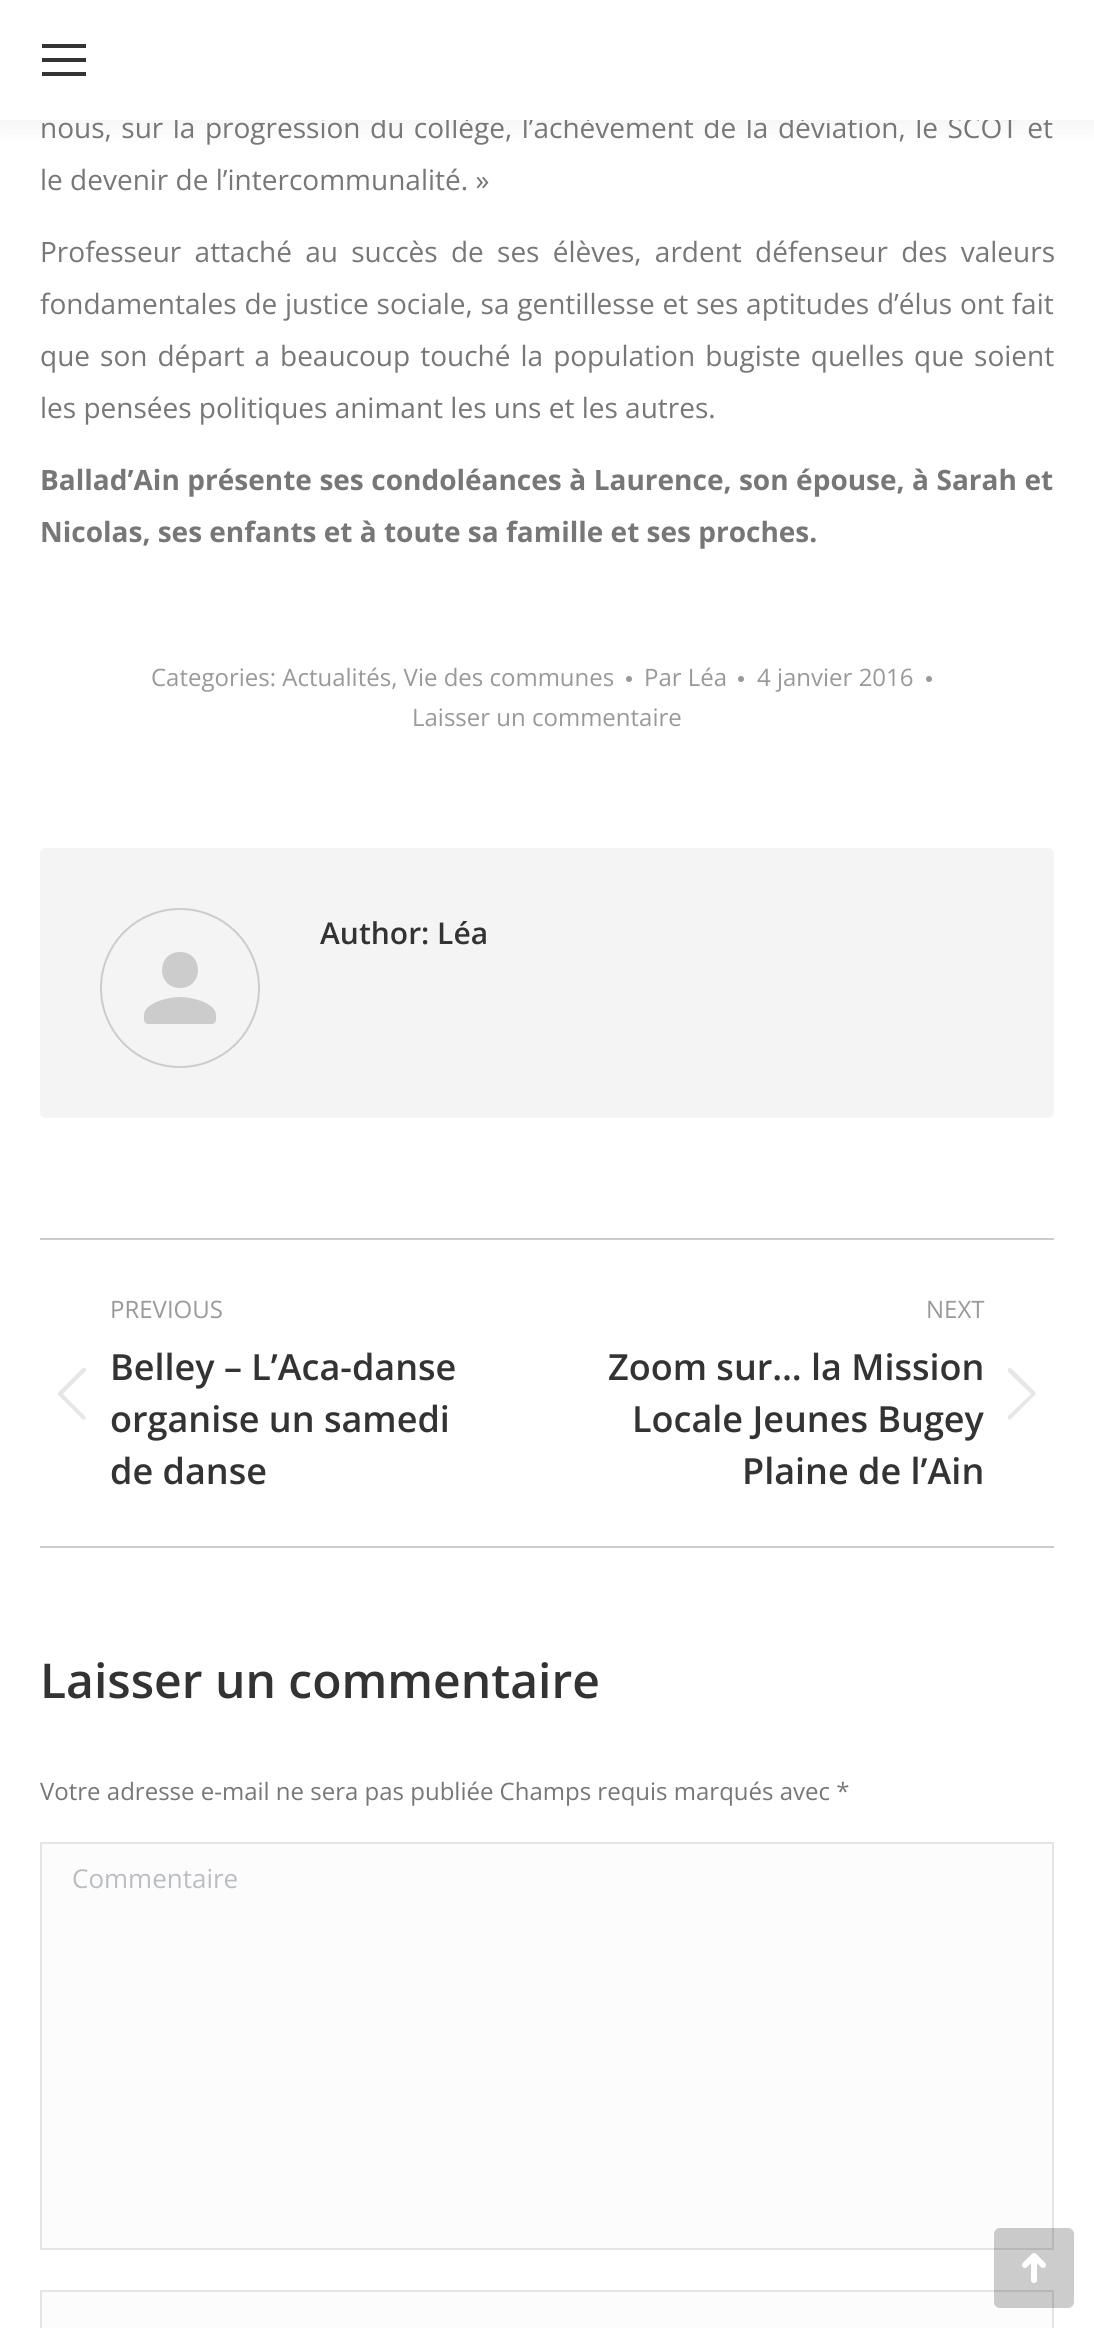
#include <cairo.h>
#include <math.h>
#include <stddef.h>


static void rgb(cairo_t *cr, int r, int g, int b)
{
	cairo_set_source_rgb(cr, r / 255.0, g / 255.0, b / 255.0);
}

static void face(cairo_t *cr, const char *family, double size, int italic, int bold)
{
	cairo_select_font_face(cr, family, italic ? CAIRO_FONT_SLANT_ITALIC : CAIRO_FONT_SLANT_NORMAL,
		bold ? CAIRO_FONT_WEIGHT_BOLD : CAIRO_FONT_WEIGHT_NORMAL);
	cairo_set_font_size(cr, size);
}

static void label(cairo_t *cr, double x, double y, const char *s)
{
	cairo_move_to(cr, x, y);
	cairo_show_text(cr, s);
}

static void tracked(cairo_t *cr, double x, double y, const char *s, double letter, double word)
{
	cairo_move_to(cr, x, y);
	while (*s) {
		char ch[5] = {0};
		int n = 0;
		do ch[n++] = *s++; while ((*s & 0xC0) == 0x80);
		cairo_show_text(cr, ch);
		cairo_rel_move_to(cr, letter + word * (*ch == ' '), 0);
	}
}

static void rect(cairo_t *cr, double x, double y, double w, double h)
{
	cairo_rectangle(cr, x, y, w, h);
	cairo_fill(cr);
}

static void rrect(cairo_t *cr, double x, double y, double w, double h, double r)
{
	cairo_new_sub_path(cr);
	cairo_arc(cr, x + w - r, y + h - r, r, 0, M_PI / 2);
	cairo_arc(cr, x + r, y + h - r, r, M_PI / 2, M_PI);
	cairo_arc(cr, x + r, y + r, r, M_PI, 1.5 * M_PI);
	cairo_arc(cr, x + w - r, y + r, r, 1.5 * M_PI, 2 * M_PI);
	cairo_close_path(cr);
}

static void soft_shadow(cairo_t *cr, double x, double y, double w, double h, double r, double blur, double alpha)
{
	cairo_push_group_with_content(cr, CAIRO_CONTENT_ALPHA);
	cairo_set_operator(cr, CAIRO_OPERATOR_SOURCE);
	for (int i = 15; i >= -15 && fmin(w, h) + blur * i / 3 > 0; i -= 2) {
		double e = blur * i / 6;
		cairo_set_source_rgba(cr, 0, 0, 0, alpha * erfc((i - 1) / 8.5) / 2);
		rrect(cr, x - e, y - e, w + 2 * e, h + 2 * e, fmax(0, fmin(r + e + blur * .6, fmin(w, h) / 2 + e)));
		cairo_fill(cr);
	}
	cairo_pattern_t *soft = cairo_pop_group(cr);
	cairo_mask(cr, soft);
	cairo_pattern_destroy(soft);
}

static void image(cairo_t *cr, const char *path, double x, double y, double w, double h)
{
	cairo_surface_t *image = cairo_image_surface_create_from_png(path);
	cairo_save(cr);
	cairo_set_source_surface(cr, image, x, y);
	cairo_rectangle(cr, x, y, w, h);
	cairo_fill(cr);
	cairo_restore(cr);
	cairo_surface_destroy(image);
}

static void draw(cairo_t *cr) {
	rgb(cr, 255, 255, 255);
	cairo_paint(cr);
	rgb(cr, 0, 0, 0);
	soft_shadow(cr, -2, -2, 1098, 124, 0, 15, 0.07);
	face(cr, "Open Sans", 28, 0, 0);
	rgb(cr, 119, 119, 119);
	tracked(cr, 40, 138, "nous, sur la progression du collège, l’achèvement de la déviation, le SCOT et", 0, 2.25);
	rgb(cr, 255, 255, 255);
	rect(cr, 0, 0, 1094, 120);
	rgb(cr, 51, 51, 51);
	rect(cr, 42, 44, 44, 4);
	rect(cr, 42, 58, 44, 4);
	rect(cr, 42, 72, 44, 4);
	rgb(cr, 119, 119, 119);
	label(cr, 40, 190, "le devenir de l’intercommunalité. »");
	tracked(cr, 40, 262, "Professeur attaché au succès de ses élèves, ardent défenseur des valeurs", 0, 6);
	tracked(cr, 40, 314, "fondamentales de justice sociale, sa gentillesse et ses aptitudes d’élus ont fait", 0, 0.5);
	tracked(cr, 40, 366, "que son départ a beaucoup touché la population bugiste quelles que soient", 0, 2.75);
	label(cr, 40, 418, "les pensées politiques animant les uns et les autres.");
	face(cr, "Open Sans", 28, 0, 1);
	tracked(cr, 40, 490, "Ballad’Ain présente ses condoléances à Laurence, son épouse, à Sarah et", 0, 0.25);
	label(cr, 40, 542, "Nicolas, ses enfants et à toute sa famille et ses proches.");
	face(cr, "Open Sans", 24, 0, 0);
	rgb(cr, 153, 153, 153);
	label(cr, 151, 686, "Categories: Actualités, Vie des communes");
	cairo_new_path(cr);
	cairo_arc(cr, 629, 679, 3, 0, 2 * M_PI);
	cairo_fill(cr);
	label(cr, 644, 686, "Par Léa");
	cairo_new_path(cr);
	cairo_arc(cr, 741, 679, 3, 0, 2 * M_PI);
	cairo_fill(cr);
	label(cr, 757, 686, "4 janvier 2016");
	cairo_new_path(cr);
	cairo_arc(cr, 929, 679, 3, 0, 2 * M_PI);
	cairo_fill(cr);
	label(cr, 412, 726, "Laisser un commentaire");
	rgb(cr, 244, 244, 244);
	rrect(cr, 40, 848, 1014, 270, 6);
	cairo_fill(cr);
	cairo_arc(cr, 180, 988, 79, 0, 2 * M_PI);
	rgb(cr, 204, 204, 204);
	cairo_stroke(cr);
	cairo_new_path(cr);
	cairo_move_to(cr, 180, 988);
	cairo_curve_to(cr, 204, 988, 204, 952, 180, 952);
	cairo_curve_to(cr, 156, 952, 156, 988, 180, 988);
	cairo_close_path(cr);
	cairo_move_to(cr, 180, 997);
	cairo_curve_to(cr, 168, 997, 144, 1003, 144, 1015);
	cairo_line_to(cr, 144, 1020);
	cairo_curve_to(cr, 144, 1022, 146, 1024, 148, 1024);
	cairo_line_to(cr, 212, 1024);
	cairo_curve_to(cr, 214, 1024, 216, 1022, 216, 1020);
	cairo_line_to(cr, 216, 1015);
	cairo_curve_to(cr, 216, 1003, 192, 997, 180, 997);
	cairo_close_path(cr);
	cairo_fill(cr);
	face(cr, "Open Sans SemiBold", 30, 0, 0);
	rgb(cr, 51, 51, 51);
	label(cr, 320, 944, "Author: Léa");
	rgb(cr, 204, 204, 204);
	rect(cr, 40, 1238, 1014, 2);
	rect(cr, 40, 1546, 1014, 2);
	face(cr, "Open Sans", 24, 0, 0);
	rgb(cr, 153, 153, 153);
	label(cr, 110, 1318, "PREVIOUS");
	image(cr, "image0.png", 58, 1368, 28, 52);
	face(cr, "Open Sans SemiBold", 36, 0, 0);
	rgb(cr, 51, 51, 51);
	label(cr, 110, 1380, "Belley – L’Aca-danse");
	label(cr, 110, 1432, "organise un samedi");
	label(cr, 110, 1484, "de danse");
	face(cr, "Open Sans", 24, 0, 0);
	rgb(cr, 153, 153, 153);
	label(cr, 926, 1318, "NEXT");
	face(cr, "Open Sans SemiBold", 36, 0, 0);
	rgb(cr, 51, 51, 51);
	label(cr, 608, 1380, "Zoom sur… la Mission");
	label(cr, 632, 1432, "Locale Jeunes Bugey");
	label(cr, 742, 1484, "Plaine de l’Ain");
	rgb(cr, 231, 231, 231);
	cairo_new_path(cr);
	cairo_move_to(cr, 1008, 1368);
	cairo_curve_to(cr, 1009, 1368, 1010, 1368, 1011, 1368);
	cairo_line_to(cr, 1035, 1392);
	cairo_curve_to(cr, 1036, 1393, 1036, 1394, 1035, 1395);
	cairo_line_to(cr, 1011, 1419);
	cairo_curve_to(cr, 1010, 1420, 1009, 1420, 1008, 1419);
	cairo_curve_to(cr, 1008, 1418, 1008, 1417, 1008, 1416);
	cairo_line_to(cr, 1031, 1394);
	cairo_line_to(cr, 1008, 1372);
	cairo_close_path(cr);
	cairo_fill(cr);
	face(cr, "Open Sans SemiBold", 48, 0, 0);
	rgb(cr, 51, 51, 51);
	label(cr, 40, 1698, "Laisser un commentaire");
	face(cr, "Open Sans", 24, 0, 0);
	rgb(cr, 119, 119, 119);
	label(cr, 40, 1800, "Votre adresse e-mail ne sera pas publiée Champs requis marqués avec *");
	rgb(cr, 252, 252, 252);
	cairo_rectangle(cr, 41, 1843, 1012, 406);
	cairo_fill_preserve(cr);
	rgb(cr, 228, 229, 231);
	cairo_stroke(cr);
	face(cr, "Open Sans", 26, 0, 0);
	rgb(cr, 186, 189, 193);
	label(cr, 72, 1888, "Commentaire");
	rgb(cr, 252, 252, 252);
	cairo_rectangle(cr, 41, 2291, 1012, 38);
	cairo_fill_preserve(cr);
	rgb(cr, 228, 229, 231);
	cairo_stroke(cr);
	cairo_set_source_rgba(cr, 0, 0, 0, 0.2);
	rrect(cr, 994, 2228, 80, 80, 6);
	cairo_fill(cr);
	image(cr, "image1.png", 1022, 2253, 24, 30);
}

int main(void) {
	cairo_surface_t *surface = cairo_image_surface_create(CAIRO_FORMAT_RGB24, 1094, 2328);
	cairo_t *cr = cairo_create(surface);
	cairo_font_options_t *options = cairo_font_options_create();
	cairo_font_options_set_hint_metrics(options, CAIRO_HINT_METRICS_OFF);
	cairo_font_options_set_hint_style(options, CAIRO_HINT_STYLE_NONE);
	cairo_set_font_options(cr, options);
	cairo_set_miter_limit(cr, 4);
	draw(cr);
	cairo_surface_write_to_png(surface, "render.png");
	cairo_font_options_destroy(options);
	cairo_destroy(cr);
	cairo_surface_destroy(surface);
	return 0;
}
